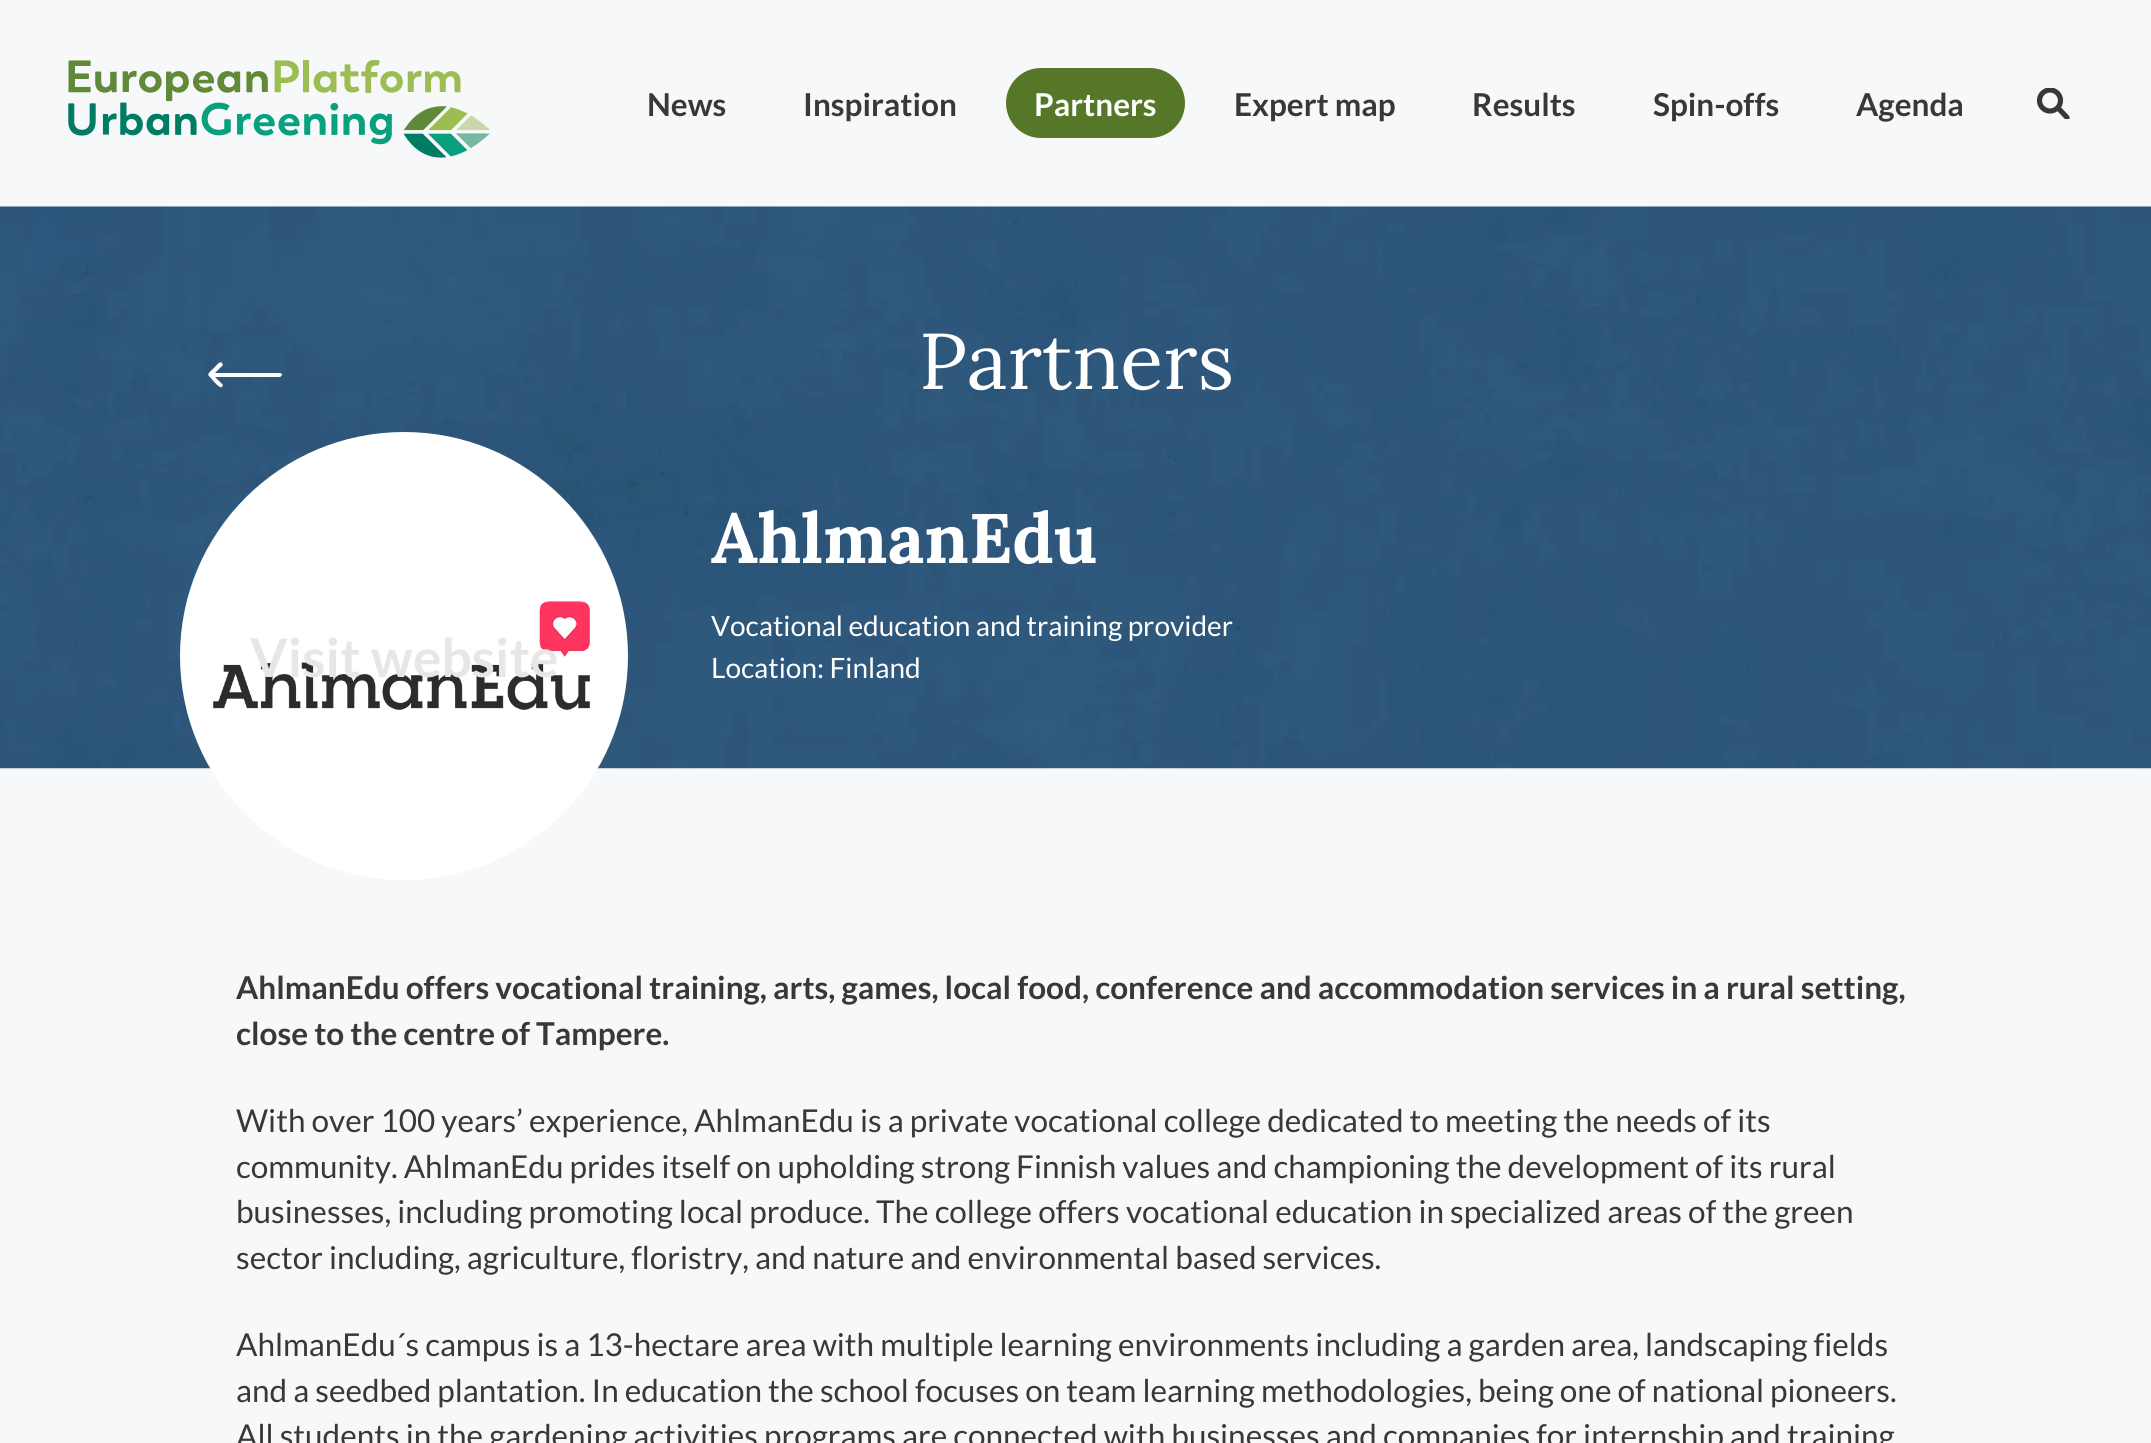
#include <cairo.h>
#include <math.h>
#include <stddef.h>


static void rgb(cairo_t *cr, int r, int g, int b)
{
	cairo_set_source_rgb(cr, r / 255.0, g / 255.0, b / 255.0);
}

static void face(cairo_t *cr, const char *family, double size, int italic, int bold)
{
	cairo_select_font_face(cr, family, italic ? CAIRO_FONT_SLANT_ITALIC : CAIRO_FONT_SLANT_NORMAL,
		bold ? CAIRO_FONT_WEIGHT_BOLD : CAIRO_FONT_WEIGHT_NORMAL);
	cairo_set_font_size(cr, size);
}

static void label(cairo_t *cr, double x, double y, const char *s)
{
	cairo_move_to(cr, x, y);
	cairo_show_text(cr, s);
}

static void rrect(cairo_t *cr, double x, double y, double w, double h, double r)
{
	cairo_new_sub_path(cr);
	cairo_arc(cr, x + w - r, y + h - r, r, 0, M_PI / 2);
	cairo_arc(cr, x + r, y + h - r, r, M_PI / 2, M_PI);
	cairo_arc(cr, x + r, y + r, r, M_PI, 1.5 * M_PI);
	cairo_arc(cr, x + w - r, y + r, r, 1.5 * M_PI, 2 * M_PI);
	cairo_close_path(cr);
}

static void image(cairo_t *cr, const char *path, double x, double y, double w, double h)
{
	cairo_surface_t *image = cairo_image_surface_create_from_png(path);
	cairo_save(cr);
	cairo_set_source_surface(cr, image, x, y);
	cairo_rectangle(cr, x, y, w, h);
	cairo_fill(cr);
	cairo_restore(cr);
	cairo_surface_destroy(image);
}

static void draw(cairo_t *cr) {
	rgb(cr, 247, 248, 249);
	cairo_paint(cr);
	image(cr, "image0.png", 68, 60, 422, 98);
	face(cr, "Lato", 31.5, 0, 1);
	rgb(cr, 56, 56, 56);
	label(cr, 647, 116, "News");
	label(cr, 803, 116, "Inspiration");
	rgb(cr, 87, 119, 40);
	rrect(cr, 1006, 68, 179, 70, 35);
	cairo_fill(cr);
	rgb(cr, 255, 255, 255);
	label(cr, 1034, 116, "Partners");
	rgb(cr, 56, 56, 56);
	label(cr, 1234, 116, "Expert map");
	label(cr, 1472, 116, "Results");
	label(cr, 1653, 116, "Spin-offs");
	label(cr, 1856, 116, "Agenda");
	cairo_save(cr);
	cairo_rectangle(cr, 2037, 88, 33, 31);
	cairo_clip(cr);
	cairo_new_path(cr);
	cairo_move_to(cr, 2067, 117.5);
	cairo_line_to(cr, 2059, 109);
	cairo_set_line_width(cr, 5.2);
	cairo_set_line_cap(cr, CAIRO_LINE_CAP_ROUND);
	cairo_set_line_join(cr, CAIRO_LINE_JOIN_ROUND);
	cairo_stroke(cr);
	cairo_arc(cr, 2050, 100.5, 10.5, 0, 2 * M_PI);
	cairo_set_line_cap(cr, CAIRO_LINE_CAP_BUTT);
	cairo_set_line_join(cr, CAIRO_LINE_JOIN_MITER);
	cairo_stroke(cr);
	cairo_restore(cr);
	image(cr, "image1.png", 0, 206, 2151, 563);
	rgb(cr, 255, 255, 255);
	cairo_new_path(cr);
	cairo_move_to(cr, 209, 376);
	cairo_curve_to(cr, 211, 378, 219, 389, 222, 387);
	cairo_line_to(cr, 223, 385);
	cairo_line_to(cr, 215, 377);
	cairo_line_to(cr, 280, 377);
	cairo_curve_to(cr, 282, 376, 282, 375, 282, 374);
	cairo_line_to(cr, 280, 373);
	cairo_line_to(cr, 215, 373);
	cairo_line_to(cr, 223, 365);
	cairo_line_to(cr, 222, 363);
	cairo_curve_to(cr, 220, 360, 215, 367, 214, 368);
	cairo_curve_to(cr, 213, 369, 206, 374, 209, 376);
	cairo_close_path(cr);
	cairo_fill(cr);
	face(cr, "Lora", 79, 0, 0);
	label(cr, 919, 389, "Partners");
	cairo_new_path(cr);
	cairo_arc(cr, 404, 656, 224, 0, 2 * M_PI);
	cairo_fill(cr);
	image(cr, "image2.png", 213, 601, 377, 109);
	face(cr, "Lato", 53.25, 0, 1);
	rgb(cr, 231, 231, 231);
	label(cr, 250, 677, "Visit website");
	face(cr, "Lora", 70, 0, 1);
	rgb(cr, 255, 255, 255);
	label(cr, 711, 563, "AhlmanEdu");
	face(cr, "Lato", 28, 0, 0);
	label(cr, 711, 636, "Vocational education and training provider");
	label(cr, 711, 678, "Location: Finland");
	face(cr, "Lato", 31.5, 0, 1);
	rgb(cr, 56, 56, 56);
	label(cr, 236, 999, "AhlmanEdu offers vocational training, arts, games, local food, conference and accommodation services in a rural setting,");
	label(cr, 236, 1045, "close to the centre of Tampere.");
	face(cr, "Lato", 31.5, 0, 0);
	label(cr, 236, 1132, "With over 100 years’ experience, AhlmanEdu is a private vocational college dedicated to meeting the needs of its");
	label(cr, 236, 1178, "community. AhlmanEdu prides itself on upholding strong Finnish values and championing the development of its rural");
	label(cr, 236, 1223, "businesses, including promoting local produce. The college offers vocational education in specialized areas of the green");
	label(cr, 236, 1269, "sector including, agriculture, floristry, and nature and environmental based services.");
	label(cr, 236, 1356, "AhlmanEdu´s campus is a 13-hectare area with multiple learning environments including a garden area, landscaping fields");
	label(cr, 236, 1402, "and a seedbed plantation. In education the school focuses on team learning methodologies, being one of national pioneers.");
	label(cr, 236, 1447, "All students in the gardening activities programs are connected with businesses and companies for internship and training");
}

int main(void) {
	cairo_surface_t *surface = cairo_image_surface_create(CAIRO_FORMAT_RGB24, 2151, 1443);
	cairo_t *cr = cairo_create(surface);
	cairo_font_options_t *options = cairo_font_options_create();
	cairo_font_options_set_hint_metrics(options, CAIRO_HINT_METRICS_OFF);
	cairo_font_options_set_hint_style(options, CAIRO_HINT_STYLE_NONE);
	cairo_set_font_options(cr, options);
	cairo_set_miter_limit(cr, 4);
	draw(cr);
	cairo_surface_write_to_png(surface, "render.png");
	cairo_font_options_destroy(options);
	cairo_destroy(cr);
	cairo_surface_destroy(surface);
	return 0;
}
